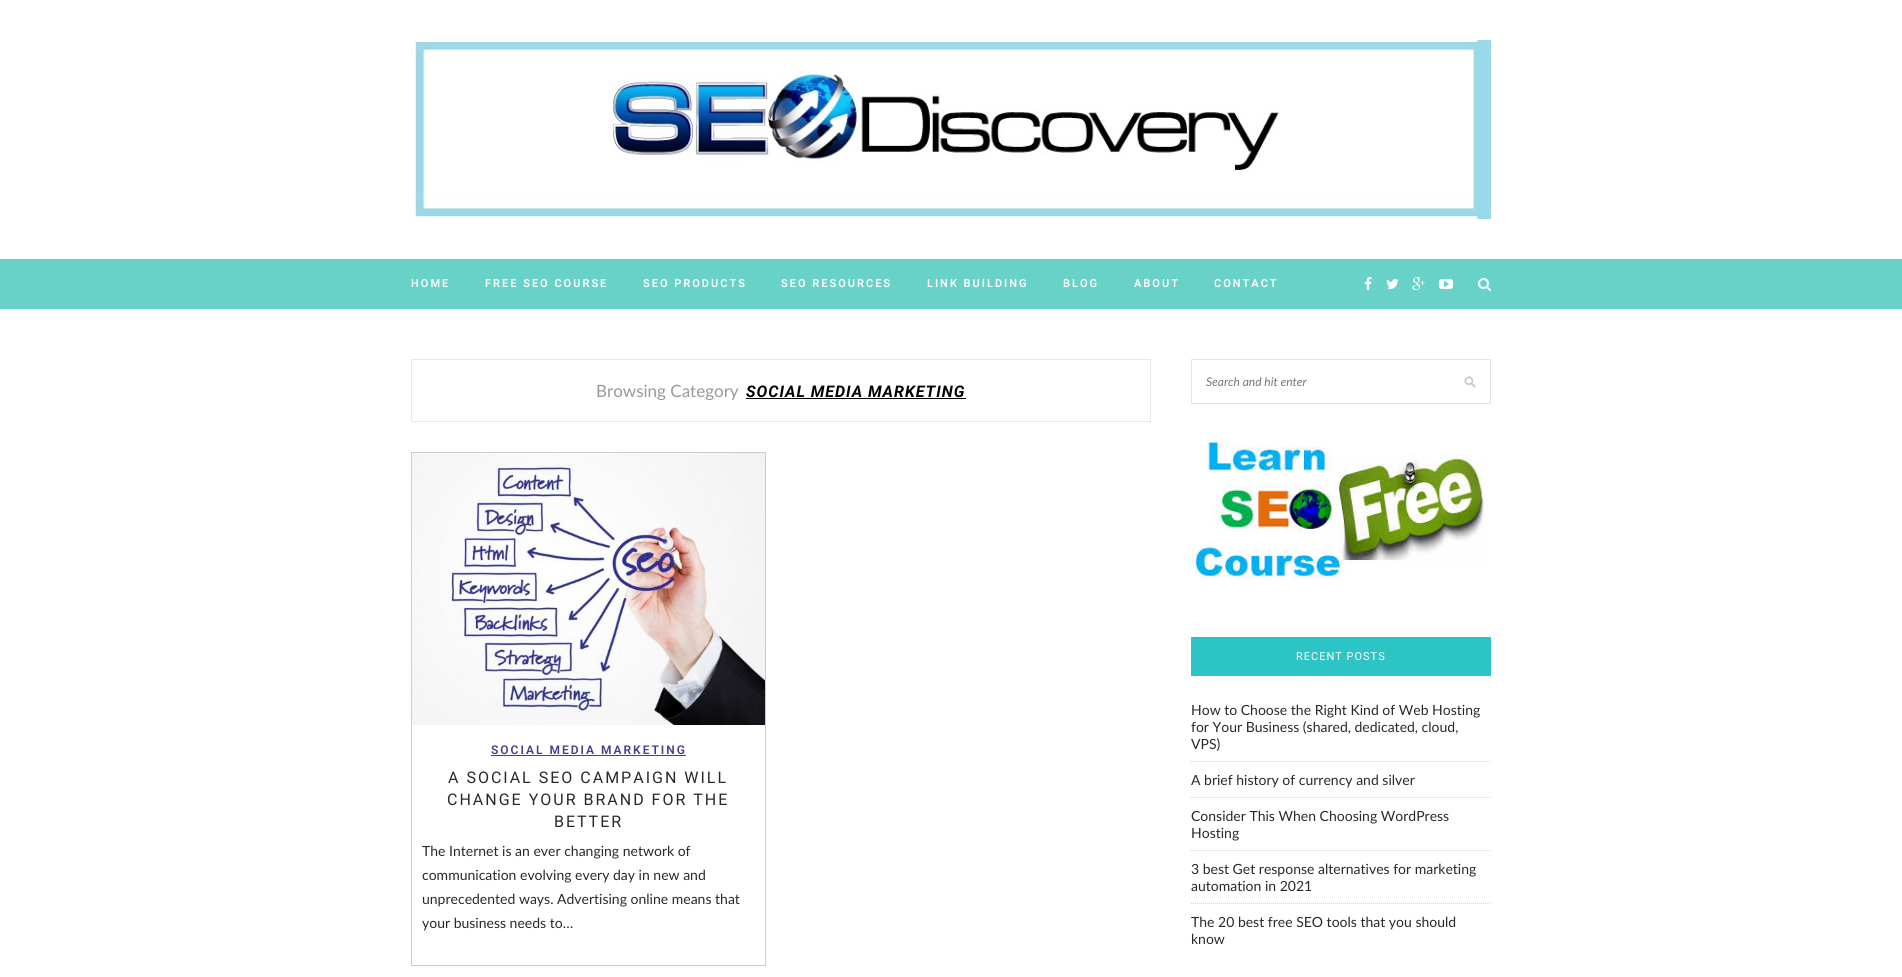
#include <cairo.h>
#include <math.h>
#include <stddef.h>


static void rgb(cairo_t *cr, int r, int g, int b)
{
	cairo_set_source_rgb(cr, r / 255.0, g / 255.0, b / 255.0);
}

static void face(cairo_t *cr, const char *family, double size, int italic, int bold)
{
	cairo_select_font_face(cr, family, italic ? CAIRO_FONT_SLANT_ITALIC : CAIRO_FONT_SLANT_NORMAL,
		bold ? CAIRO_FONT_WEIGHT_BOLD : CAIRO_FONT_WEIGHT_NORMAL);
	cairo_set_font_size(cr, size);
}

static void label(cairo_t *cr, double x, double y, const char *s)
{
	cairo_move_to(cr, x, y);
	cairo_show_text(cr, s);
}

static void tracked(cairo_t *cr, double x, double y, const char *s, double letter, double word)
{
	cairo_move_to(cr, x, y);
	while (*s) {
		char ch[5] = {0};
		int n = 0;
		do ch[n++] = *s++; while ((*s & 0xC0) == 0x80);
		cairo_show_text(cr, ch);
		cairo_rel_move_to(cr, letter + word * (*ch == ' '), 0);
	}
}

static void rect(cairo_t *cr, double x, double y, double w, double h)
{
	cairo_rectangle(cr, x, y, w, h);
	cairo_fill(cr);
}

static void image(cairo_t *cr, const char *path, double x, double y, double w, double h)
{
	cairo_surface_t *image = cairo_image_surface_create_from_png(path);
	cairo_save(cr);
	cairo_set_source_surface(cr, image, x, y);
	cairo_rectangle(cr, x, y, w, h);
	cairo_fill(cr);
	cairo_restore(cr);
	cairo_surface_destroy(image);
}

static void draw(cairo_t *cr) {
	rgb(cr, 255, 255, 255);
	cairo_paint(cr);
	image(cr, "image0.png", 411, 40, 1080, 179);
	rgb(cr, 104, 209, 200);
	rect(cr, 0, 259, 1902, 50);
	face(cr, "Roboto SemiBold", 11, 0, 0);
	rgb(cr, 255, 255, 255);
	tracked(cr, 411, 287, "HOME", 2, 0);
	tracked(cr, 485, 287, "FREE SEO COURSE", 2, 0);
	tracked(cr, 643, 287, "SEO PRODUCTS", 2, 0);
	tracked(cr, 781, 287, "SEO RESOURCES", 2, 0);
	tracked(cr, 927, 287, "LINK BUILDING", 2, 0);
	tracked(cr, 1063, 287, "BLOG", 2, 0);
	tracked(cr, 1134, 287, "ABOUT", 2, 0);
	tracked(cr, 1214, 287, "CONTACT", 2, 0);
	image(cr, "image1.png", 1364, 277, 8, 13);
	image(cr, "image2.png", 1386, 279, 13, 10);
	image(cr, "image3.png", 1412, 277, 13, 13);
	image(cr, "image4.png", 1439, 279, 14, 10);
	image(cr, "image5.png", 1478, 278, 13, 13);
	cairo_rectangle(cr, 411.5, 359.5, 739, 62);
	rgb(cr, 232, 232, 232);
	cairo_set_line_width(cr, 1);
	cairo_stroke(cr);
	face(cr, "Lato", 17, 0, 0);
	rgb(cr, 153, 153, 153);
	label(cr, 596, 397, "Browsing Category");
	face(cr, "Roboto", 16, 1, 1);
	rgb(cr, 0, 0, 0);
	tracked(cr, 746, 397, "SOCIAL MEDIA MARKETING", 1, 0);
	rect(cr, 746, 398, 220, 1);
	cairo_rectangle(cr, 411.5, 452.5, 354, 513);
	rgb(cr, 204, 204, 204);
	cairo_stroke(cr);
	image(cr, "image6.png", 412, 453, 353, 272);
	face(cr, "Roboto SemiBold", 12, 0, 0);
	rgb(cr, 67, 62, 144);
	tracked(cr, 491, 754, "SOCIAL MEDIA MARKETING", 2, 0);
	rect(cr, 491, 755, 195, 1);
	face(cr, "Roboto", 16, 0, 0);
	rgb(cr, 41, 41, 41);
	tracked(cr, 448, 783, "A SOCIAL SEO CAMPAIGN WILL", 2, 0);
	tracked(cr, 447, 805, "CHANGE YOUR BRAND FOR THE", 2, 0);
	tracked(cr, 554, 827, "BETTER", 2, 0);
	face(cr, "Lato", 14, 0, 0);
	label(cr, 422, 856, "The Internet is an ever changing network of");
	label(cr, 422, 880, "communication evolving every day in new and");
	label(cr, 422, 904, "unprecedented ways. Advertising online means that");
	label(cr, 422, 928, "your business needs to…");
	image(cr, "image7.png", 1464, 376, 12, 12);
	cairo_rectangle(cr, 1191.5, 359.5, 299, 44);
	rgb(cr, 229, 229, 229);
	cairo_stroke(cr);
	face(cr, "Lato", 12, 1, 0);
	rgb(cr, 117, 117, 117);
	label(cr, 1206, 386, "Search and hit enter");
	image(cr, "image8.png", 1191, 439, 296, 141);
	rgb(cr, 45, 196, 198);
	rect(cr, 1191, 637, 300, 39);
	face(cr, "Roboto", 11, 0, 0);
	rgb(cr, 255, 255, 255);
	tracked(cr, 1296, 660, "RECENT POSTS", 1, 0);
	cairo_new_path(cr);
	cairo_move_to(cr, 1191, 761.5);
	cairo_line_to(cr, 1491, 761.5);
	rgb(cr, 213, 213, 213);
	cairo_set_dash(cr, (double[]){1, 1}, 2, 0);
	cairo_stroke(cr);
	face(cr, "Lato", 14, 0, 0);
	rgb(cr, 41, 41, 41);
	label(cr, 1191, 715, "How to Choose the Right Kind of Web Hosting");
	label(cr, 1191, 732, "for Your Business (shared, dedicated, cloud,");
	label(cr, 1191, 749, "VPS)");
	cairo_new_path(cr);
	cairo_move_to(cr, 1191, 797.5);
	cairo_line_to(cr, 1491, 797.5);
	rgb(cr, 213, 213, 213);
	cairo_stroke(cr);
	rgb(cr, 41, 41, 41);
	label(cr, 1191, 785, "A brief history of currency and silver");
	cairo_new_path(cr);
	cairo_move_to(cr, 1191, 850.5);
	cairo_line_to(cr, 1491, 850.5);
	rgb(cr, 213, 213, 213);
	cairo_stroke(cr);
	rgb(cr, 41, 41, 41);
	label(cr, 1191, 821, "Consider This When Choosing WordPress");
	label(cr, 1191, 838, "Hosting");
	cairo_new_path(cr);
	cairo_move_to(cr, 1191, 903.5);
	cairo_line_to(cr, 1491, 903.5);
	rgb(cr, 213, 213, 213);
	cairo_stroke(cr);
	rgb(cr, 41, 41, 41);
	label(cr, 1191, 874, "3 best Get response alternatives for marketing");
	label(cr, 1191, 891, "automation in 2021");
	label(cr, 1191, 927, "The 20 best free SEO tools that you should");
	label(cr, 1191, 944, "know");
}

int main(void) {
	cairo_surface_t *surface = cairo_image_surface_create(CAIRO_FORMAT_RGB24, 1902, 977);
	cairo_t *cr = cairo_create(surface);
	cairo_font_options_t *options = cairo_font_options_create();
	cairo_font_options_set_hint_metrics(options, CAIRO_HINT_METRICS_OFF);
	cairo_font_options_set_hint_style(options, CAIRO_HINT_STYLE_NONE);
	cairo_set_font_options(cr, options);
	cairo_set_miter_limit(cr, 4);
	draw(cr);
	cairo_surface_write_to_png(surface, "render.png");
	cairo_font_options_destroy(options);
	cairo_destroy(cr);
	cairo_surface_destroy(surface);
	return 0;
}
